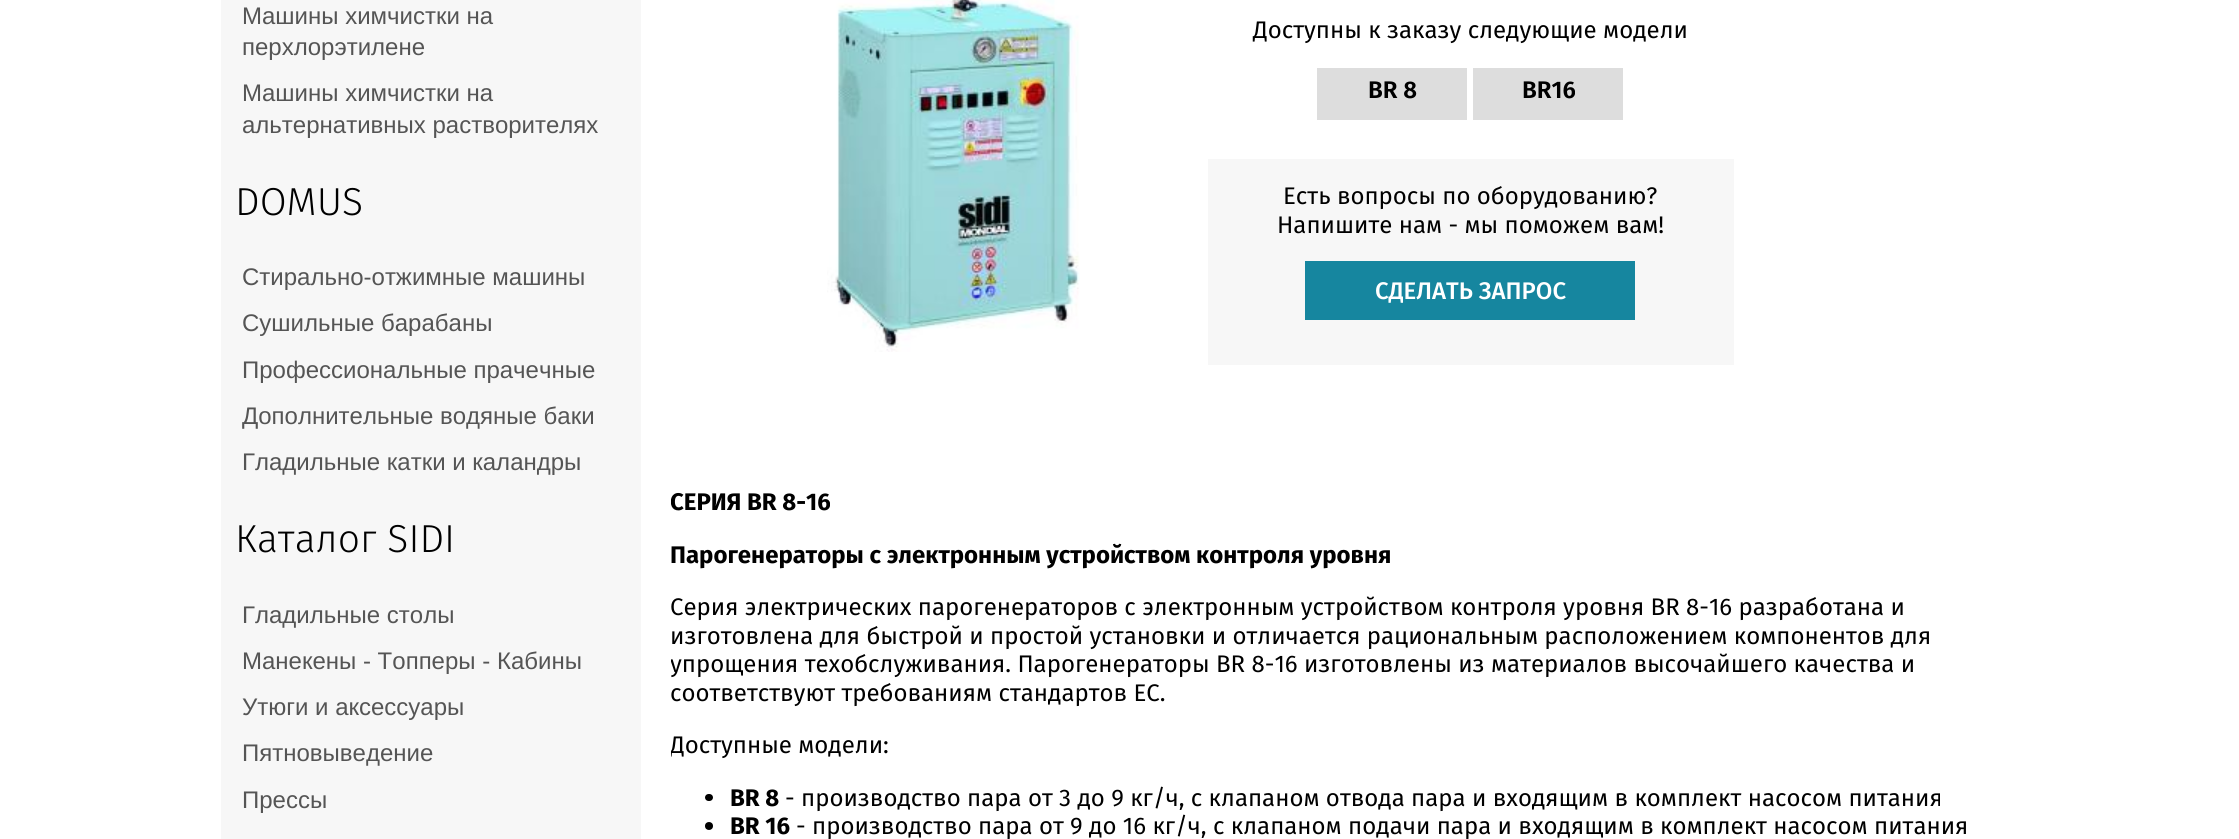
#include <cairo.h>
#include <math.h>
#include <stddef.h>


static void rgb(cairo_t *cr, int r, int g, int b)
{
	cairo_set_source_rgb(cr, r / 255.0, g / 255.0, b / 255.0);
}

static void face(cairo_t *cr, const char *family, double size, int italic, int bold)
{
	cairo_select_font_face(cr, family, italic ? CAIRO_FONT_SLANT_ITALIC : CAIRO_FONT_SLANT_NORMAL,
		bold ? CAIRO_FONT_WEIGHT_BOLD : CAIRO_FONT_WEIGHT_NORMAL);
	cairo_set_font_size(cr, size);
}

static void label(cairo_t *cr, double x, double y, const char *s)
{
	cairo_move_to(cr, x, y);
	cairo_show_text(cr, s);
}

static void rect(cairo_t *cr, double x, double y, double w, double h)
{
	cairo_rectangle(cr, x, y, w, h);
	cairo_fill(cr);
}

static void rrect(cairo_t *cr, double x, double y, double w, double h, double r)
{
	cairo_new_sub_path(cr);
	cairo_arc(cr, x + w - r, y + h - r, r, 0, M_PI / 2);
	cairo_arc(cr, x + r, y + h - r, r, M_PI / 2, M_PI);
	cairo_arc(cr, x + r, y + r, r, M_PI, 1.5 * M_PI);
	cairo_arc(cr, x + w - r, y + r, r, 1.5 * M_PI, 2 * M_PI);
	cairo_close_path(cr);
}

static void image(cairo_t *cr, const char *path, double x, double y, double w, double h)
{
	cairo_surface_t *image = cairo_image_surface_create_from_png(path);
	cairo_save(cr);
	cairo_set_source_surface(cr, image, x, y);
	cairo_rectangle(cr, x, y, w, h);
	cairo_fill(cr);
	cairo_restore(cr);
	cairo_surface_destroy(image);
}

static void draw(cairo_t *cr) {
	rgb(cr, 255, 255, 255);
	cairo_paint(cr);
	rgb(cr, 247, 247, 247);
	rect(cr, 221, 0, 420, 839);
	face(cr, "Liberation Sans", 24, 0, 0);
	rgb(cr, 85, 85, 85);
	label(cr, 242, 24, "Машины химчистки на");
	label(cr, 242, 55, "перхлорэтилене");
	label(cr, 242, 101, "Машины химчистки на");
	label(cr, 242, 133, "альтернативных растворителях");
	face(cr, "Fira Sans Light", 39, 0, 0);
	rgb(cr, 0, 0, 0);
	label(cr, 235, 215, "DOMUS");
	face(cr, "Liberation Sans", 24, 0, 0);
	rgb(cr, 85, 85, 85);
	label(cr, 242, 285, "Стирально-отжимные машины");
	label(cr, 242, 331, "Сушильные барабаны");
	label(cr, 242, 378, "Профессиональные прачечные");
	label(cr, 242, 424, "Дополнительные водяные баки");
	label(cr, 242, 470, "Гладильные катки и каландры");
	face(cr, "Fira Sans Light", 39, 0, 0);
	rgb(cr, 0, 0, 0);
	label(cr, 235, 552, "Каталог SIDI");
	face(cr, "Liberation Sans", 24, 0, 0);
	rgb(cr, 85, 85, 85);
	label(cr, 242, 623, "Гладильные столы");
	label(cr, 242, 669, "Манекены - Топперы - Кабины");
	label(cr, 242, 715, "Утюги и аксессуары");
	label(cr, 242, 761, "Пятновыведение");
	label(cr, 242, 808, "Прессы");
	image(cr, "image0.png", 827, 0, 253, 352);
	face(cr, "Fira Sans", 24, 0, 0);
	rgb(cr, 0, 0, 0);
	label(cr, 1253, 38, "Доступны к заказу следующие модели");
	rgb(cr, 221, 221, 221);
	rect(cr, 1317, 68, 150, 52);
	face(cr, "Fira Sans SemiBold", 24, 0, 0);
	rgb(cr, 0, 0, 0);
	label(cr, 1368, 98, "BR 8");
	rgb(cr, 221, 221, 221);
	rect(cr, 1473, 68, 150, 52);
	rgb(cr, 0, 0, 0);
	label(cr, 1522, 98, "BR16");
	rgb(cr, 247, 247, 247);
	rect(cr, 1208, 159, 526, 206);
	face(cr, "Fira Sans", 24, 0, 0);
	rgb(cr, 0, 0, 0);
	label(cr, 1283, 204, "Есть вопросы по оборудованию?");
	label(cr, 1277, 233, "Напишите нам - мы поможем вам!");
	rgb(cr, 22, 134, 159);
	rect(cr, 1305, 261, 330, 59);
	face(cr, "Fira Sans Medium", 24, 0, 0);
	rgb(cr, 255, 255, 255);
	label(cr, 1375, 299, "СДЕЛАТЬ ЗАПРОС");
	cairo_save(cr);
	cairo_rectangle(cr, 671, 0, 1320, 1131);
	cairo_clip(cr);
	face(cr, "Fira Sans", 24, 0, 1);
	rgb(cr, 0, 0, 0);
	label(cr, 670, 510, "СЕРИЯ BR 8-16");
	cairo_restore(cr);
	face(cr, "Fira Sans", 24, 0, 1);
	rgb(cr, 0, 0, 0);
	label(cr, 670, 563, "Парогенераторы с электронным устройством контроля уровня");
	face(cr, "Fira Sans", 24, 0, 0);
	label(cr, 670, 615, "Серия электрических парогенераторов с электронным устройством контроля уровня BR 8-16 разработана и");
	label(cr, 670, 644, "изготовлена для быстрой и простой установки и отличается рациональным расположением компонентов для");
	cairo_save(cr);
	cairo_rectangle(cr, 671, 0, 1320, 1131);
	cairo_clip(cr);
	label(cr, 670, 672, "упрощения техобслуживания. Парогенераторы BR 8-16 изготовлены из материалов высочайшего качества и");
	cairo_restore(cr);
	label(cr, 670, 701, "соответствуют требованиям стандартов ЕС.");
	cairo_save(cr);
	cairo_rectangle(cr, 671, 0, 1320, 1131);
	cairo_clip(cr);
	label(cr, 670, 753, "Доступные модели:");
	cairo_restore(cr);
	rrect(cr, 705, 794, 8, 7, 3.5);
	cairo_fill(cr);
	face(cr, "Fira Sans", 24, 0, 1);
	label(cr, 730, 806, "BR 8");
	face(cr, "Fira Sans", 24, 0, 0);
	label(cr, 785, 806, "- производство пара от 3 до 9 кг/ч, с клапаном отвода пара и входящим в комплект насосом питания");
	cairo_new_path(cr);
	cairo_arc(cr, 709, 826, 4, 0, 2 * M_PI);
	cairo_fill(cr);
	face(cr, "Fira Sans", 24, 0, 1);
	label(cr, 730, 834, "BR 16");
	face(cr, "Fira Sans", 24, 0, 0);
	label(cr, 796, 834, "- производство пара от 9 до 16 кг/ч, с клапаном подачи пара и входящим в комплект насосом питания");
}

int main(void) {
	cairo_surface_t *surface = cairo_image_surface_create(CAIRO_FORMAT_RGB24, 2239, 839);
	cairo_t *cr = cairo_create(surface);
	cairo_font_options_t *options = cairo_font_options_create();
	cairo_font_options_set_hint_metrics(options, CAIRO_HINT_METRICS_OFF);
	cairo_font_options_set_hint_style(options, CAIRO_HINT_STYLE_NONE);
	cairo_set_font_options(cr, options);
	cairo_set_miter_limit(cr, 4);
	draw(cr);
	cairo_surface_write_to_png(surface, "render.png");
	cairo_font_options_destroy(options);
	cairo_destroy(cr);
	cairo_surface_destroy(surface);
	return 0;
}
